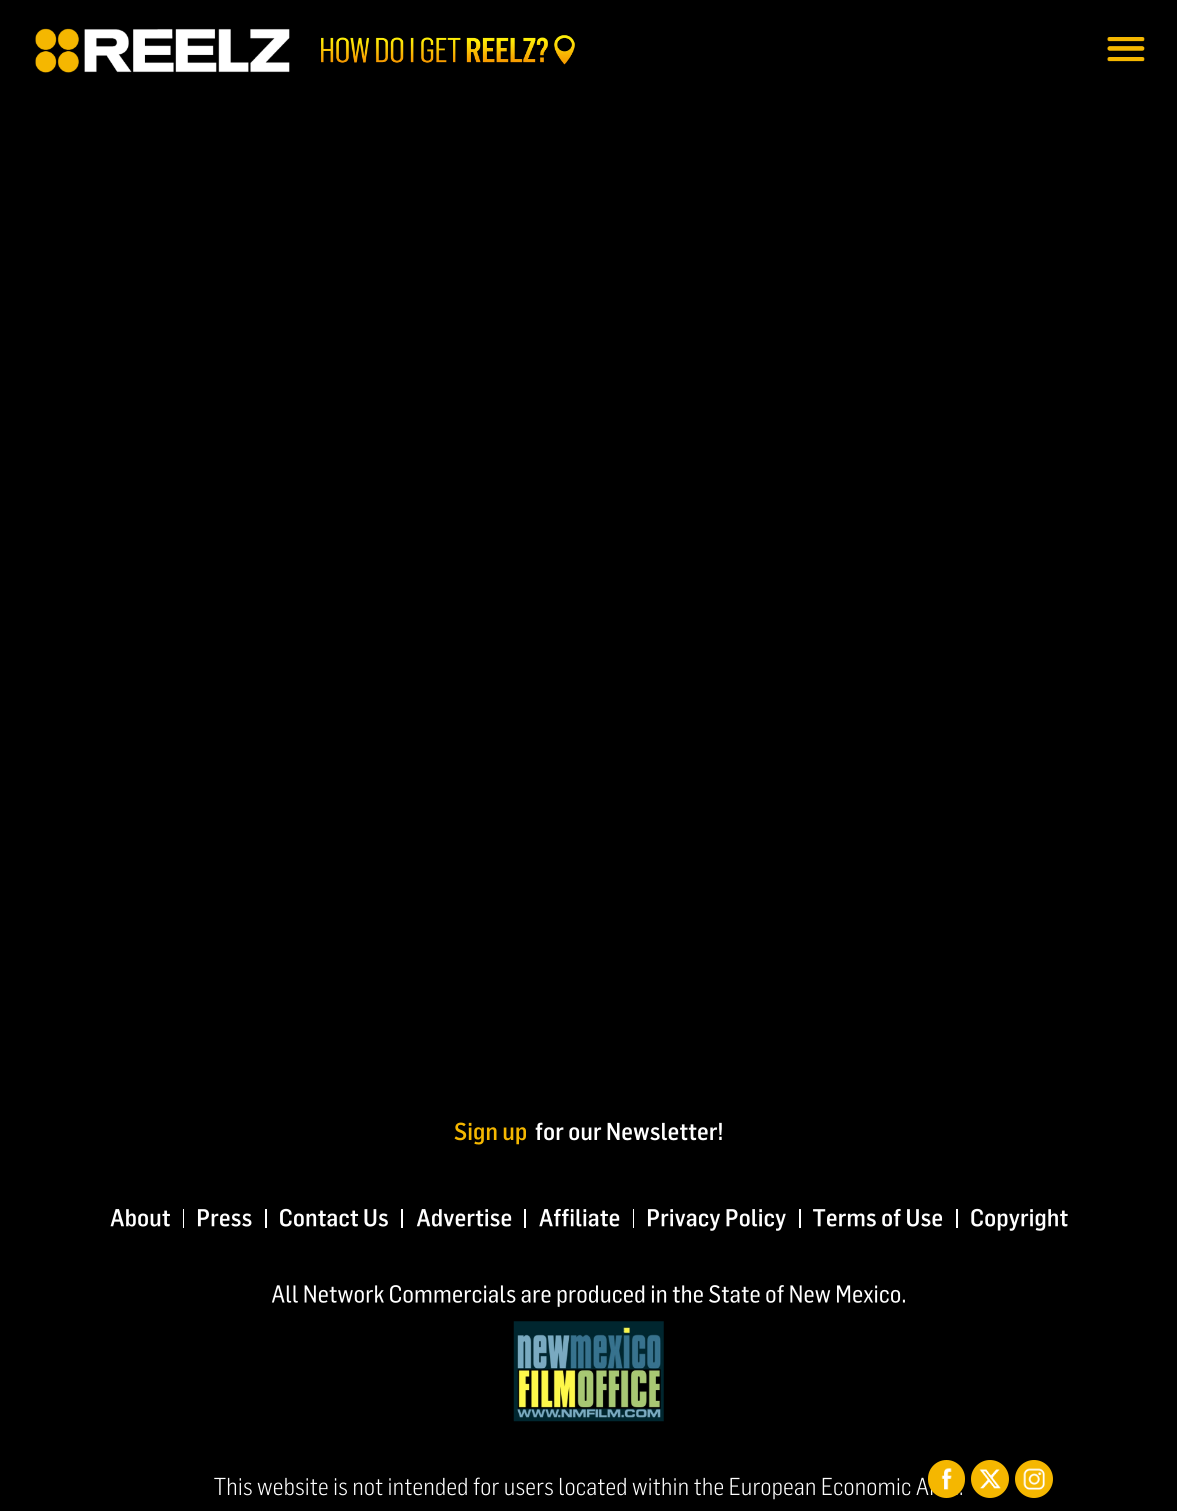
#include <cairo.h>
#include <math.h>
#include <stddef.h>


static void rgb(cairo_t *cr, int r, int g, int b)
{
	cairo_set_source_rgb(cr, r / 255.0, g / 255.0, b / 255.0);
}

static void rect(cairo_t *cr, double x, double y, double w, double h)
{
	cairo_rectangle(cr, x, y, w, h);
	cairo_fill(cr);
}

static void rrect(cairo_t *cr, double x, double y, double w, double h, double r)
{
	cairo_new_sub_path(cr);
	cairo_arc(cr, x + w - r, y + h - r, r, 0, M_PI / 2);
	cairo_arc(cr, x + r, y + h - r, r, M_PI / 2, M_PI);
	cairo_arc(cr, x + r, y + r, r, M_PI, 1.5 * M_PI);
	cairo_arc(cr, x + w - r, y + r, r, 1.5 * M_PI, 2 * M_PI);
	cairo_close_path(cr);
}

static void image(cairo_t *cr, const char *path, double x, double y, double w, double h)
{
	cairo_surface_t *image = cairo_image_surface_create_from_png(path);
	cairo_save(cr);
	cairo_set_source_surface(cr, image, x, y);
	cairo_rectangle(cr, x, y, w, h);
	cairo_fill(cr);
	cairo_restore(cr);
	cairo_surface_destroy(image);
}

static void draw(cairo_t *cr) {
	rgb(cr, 0, 0, 0);
	cairo_paint(cr);
	image(cr, "image0.png", 35, 28, 255, 45);
	image(cr, "image1.png", 321, 35, 254, 30);
	image(cr, "image2.png", 1107, 37, 38, 25);
	image(cr, "image3.png", 454, 1122, 72, 23);
	image(cr, "image4.png", 535, 1122, 187, 19);
	image(cr, "image5.png", 110, 1209, 60, 18);
	rgb(cr, 255, 255, 255);
	rect(cr, 183, 1209, 1, 19);
	image(cr, "image6.png", 197, 1209, 55, 18);
	rect(cr, 265, 1209, 2, 19);
	image(cr, "image7.png", 280, 1208, 108, 19);
	rect(cr, 401, 1209, 2, 19);
	image(cr, "image8.png", 416, 1209, 96, 18);
	rect(cr, 524, 1209, 2, 19);
	image(cr, "image9.png", 539, 1208, 81, 19);
	rect(cr, 633, 1209, 1, 19);
	image(cr, "image10.png", 647, 1209, 139, 22);
	rect(cr, 799, 1209, 2, 19);
	image(cr, "image11.png", 813, 1208, 130, 19);
	rect(cr, 956, 1209, 2, 19);
	image(cr, "image12.png", 971, 1208, 97, 23);
	image(cr, "image13.png", 271, 1285, 634, 22);
	image(cr, "image14.png", 513, 1321, 151, 101);
	image(cr, "image15.png", 214, 1477, 748, 23);
	rgb(cr, 245, 183, 0);
	rrect(cr, 928, 1460, 37, 38, 18.5);
	cairo_fill(cr);
	image(cr, "image16.png", 941, 1468, 11, 22);
	cairo_arc(cr, 990, 1479, 19, 0, 2 * M_PI);
	cairo_fill(cr);
	image(cr, "image17.png", 979, 1469, 22, 20);
	cairo_arc(cr, 1034, 1479, 19, 0, 2 * M_PI);
	cairo_fill(cr);
	image(cr, "image18.png", 1023, 1468, 22, 22);
}

int main(void) {
	cairo_surface_t *surface = cairo_image_surface_create(CAIRO_FORMAT_RGB24, 1177, 1511);
	cairo_t *cr = cairo_create(surface);
	cairo_font_options_t *options = cairo_font_options_create();
	cairo_font_options_set_hint_metrics(options, CAIRO_HINT_METRICS_OFF);
	cairo_font_options_set_hint_style(options, CAIRO_HINT_STYLE_NONE);
	cairo_set_font_options(cr, options);
	cairo_set_miter_limit(cr, 4);
	draw(cr);
	cairo_surface_write_to_png(surface, "render.png");
	cairo_font_options_destroy(options);
	cairo_destroy(cr);
	cairo_surface_destroy(surface);
	return 0;
}
